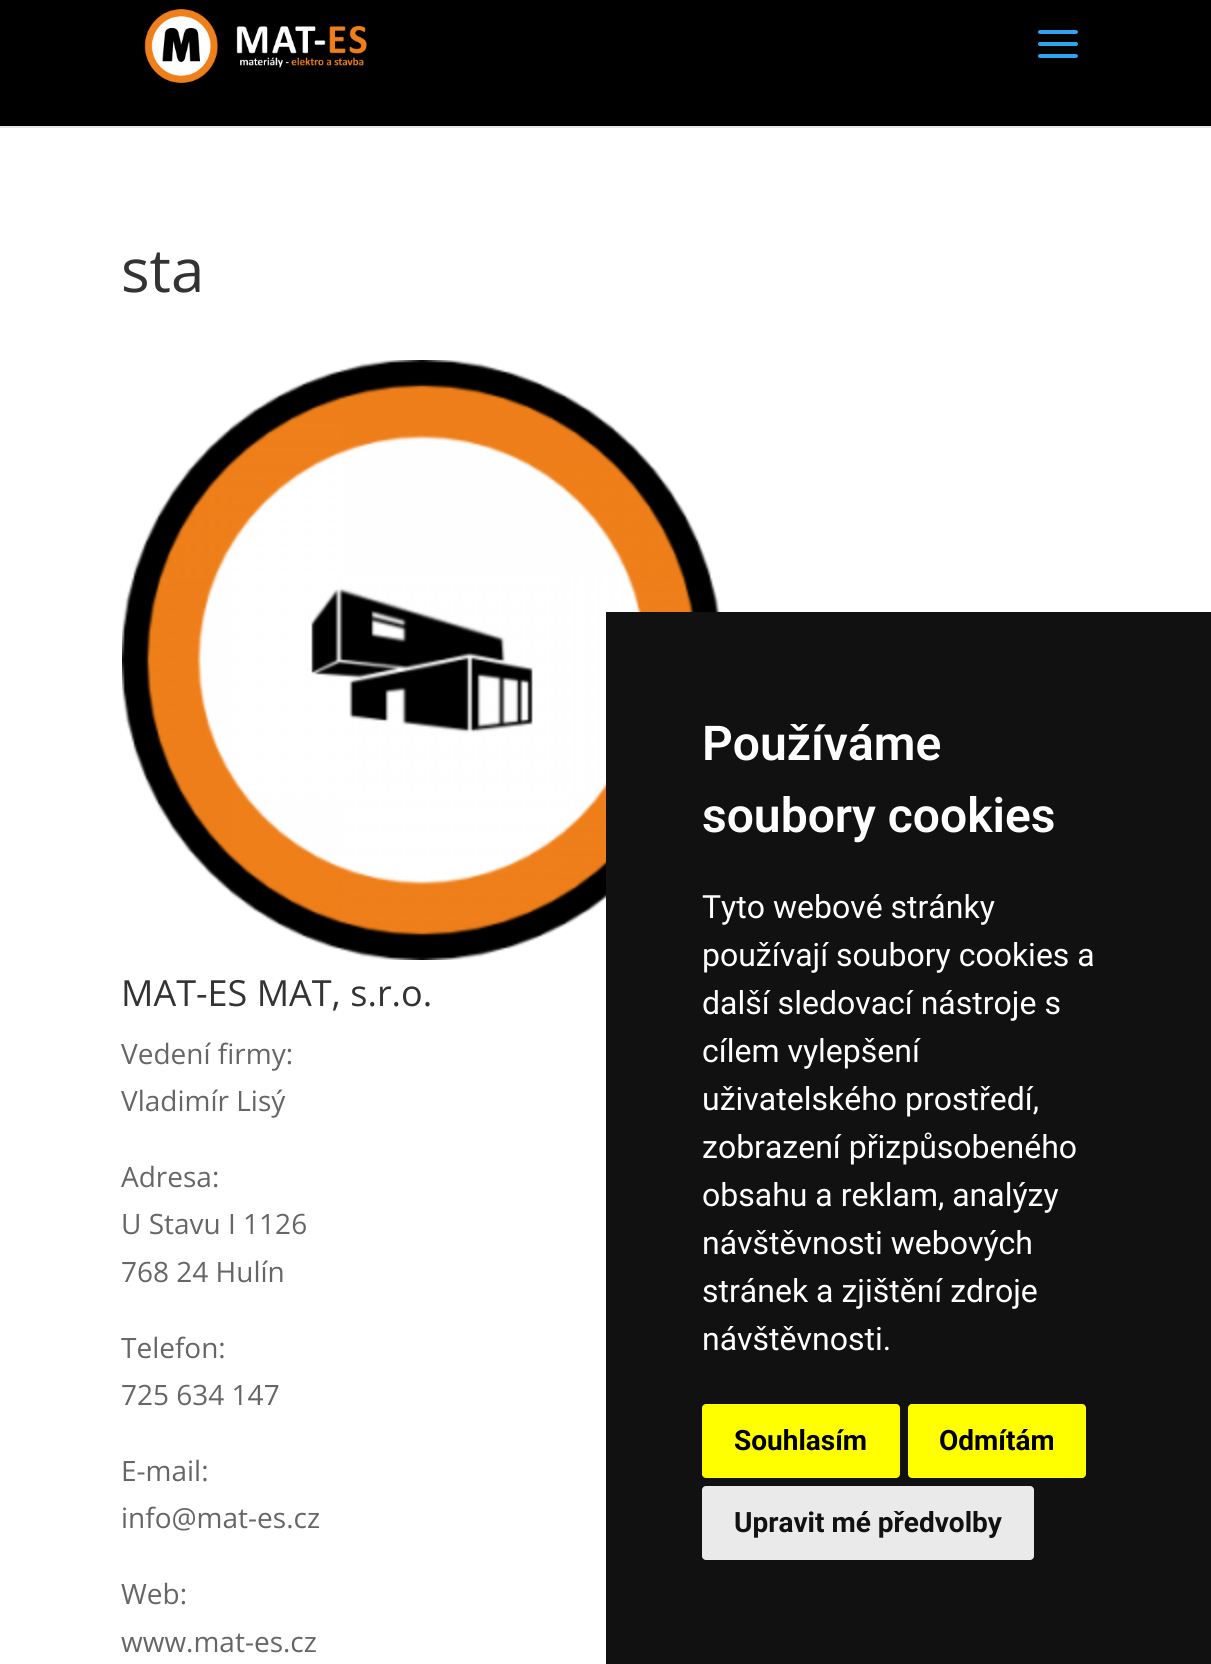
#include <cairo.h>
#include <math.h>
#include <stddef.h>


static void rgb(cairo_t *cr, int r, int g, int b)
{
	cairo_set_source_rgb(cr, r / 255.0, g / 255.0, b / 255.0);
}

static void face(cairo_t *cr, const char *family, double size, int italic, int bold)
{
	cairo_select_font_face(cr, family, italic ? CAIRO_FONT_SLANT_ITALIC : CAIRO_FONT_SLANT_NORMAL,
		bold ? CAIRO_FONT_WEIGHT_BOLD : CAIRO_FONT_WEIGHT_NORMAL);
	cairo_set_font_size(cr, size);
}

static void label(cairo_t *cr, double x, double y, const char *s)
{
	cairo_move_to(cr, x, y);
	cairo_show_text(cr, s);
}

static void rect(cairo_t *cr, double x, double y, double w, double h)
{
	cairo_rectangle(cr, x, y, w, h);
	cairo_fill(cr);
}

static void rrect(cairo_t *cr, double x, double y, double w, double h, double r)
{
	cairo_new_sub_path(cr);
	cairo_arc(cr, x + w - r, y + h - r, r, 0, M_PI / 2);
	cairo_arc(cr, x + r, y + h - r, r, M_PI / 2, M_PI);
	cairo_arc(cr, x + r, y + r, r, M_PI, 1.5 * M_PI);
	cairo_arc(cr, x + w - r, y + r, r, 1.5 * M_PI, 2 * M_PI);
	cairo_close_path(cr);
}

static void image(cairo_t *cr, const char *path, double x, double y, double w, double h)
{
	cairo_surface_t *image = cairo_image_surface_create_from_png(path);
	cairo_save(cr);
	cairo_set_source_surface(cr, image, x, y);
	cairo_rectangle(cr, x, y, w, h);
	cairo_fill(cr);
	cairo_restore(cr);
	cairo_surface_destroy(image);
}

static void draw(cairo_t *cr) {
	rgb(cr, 255, 255, 255);
	cairo_paint(cr);
	rgb(cr, 230, 230, 230);
	rect(cr, 0, 126, 1211, 2);
	rgb(cr, 0, 0, 0);
	rect(cr, 0, 0, 1211, 126);
	image(cr, "image0.png", 144, 9, 223, 74);
	image(cr, "image1.png", 1038, 30, 40, 28);
	face(cr, "Open Sans", 60, 0, 0);
	rgb(cr, 51, 51, 51);
	label(cr, 121, 292, "sta");
	image(cr, "image2.png", 122, 360, 599, 600);
	face(cr, "Open Sans", 36, 0, 0);
	label(cr, 121, 1006, "MAT-ES MAT, s.r.o.");
	face(cr, "Open Sans", 28, 0, 0);
	rgb(cr, 102, 102, 102);
	label(cr, 121, 1064, "Vedení firmy:");
	label(cr, 121, 1111, "Vladimír Lisý");
	label(cr, 121, 1187, "Adresa:");
	label(cr, 121, 1234, "U Stavu I 1126");
	label(cr, 121, 1282, "768 24 Hulín");
	label(cr, 121, 1358, "Telefon:");
	label(cr, 121, 1405, "725 634 147");
	label(cr, 121, 1481, "E-mail:");
	label(cr, 121, 1528, "info@mat-es.cz");
	label(cr, 121, 1604, "Web:");
	label(cr, 121, 1652, "www.mat-es.cz");
	rgb(cr, 17, 17, 17);
	rect(cr, 606, 612, 605, 1052);
	face(cr, "Roboto SemiBold", 48, 0, 0);
	rgb(cr, 255, 255, 255);
	label(cr, 702, 760, "Používáme");
	label(cr, 702, 832, "soubory cookies");
	face(cr, "Roboto", 32, 0, 0);
	label(cr, 702, 918, "Tyto webové stránky");
	label(cr, 702, 966, "používají soubory cookies a");
	label(cr, 702, 1014, "další sledovací nástroje s");
	label(cr, 702, 1062, "cílem vylepšení");
	label(cr, 702, 1110, "uživatelského prostředí,");
	label(cr, 702, 1158, "zobrazení přizpůsobeného");
	label(cr, 702, 1206, "obsahu a reklam, analýzy");
	label(cr, 702, 1254, "návštěvnosti webových");
	label(cr, 702, 1302, "stránek a zjištění zdroje");
	label(cr, 702, 1350, "návštěvnosti.");
	rgb(cr, 255, 255, 0);
	rrect(cr, 702, 1404, 198, 74, 4);
	cairo_fill(cr);
	face(cr, "Roboto", 28, 0, 1);
	rgb(cr, 0, 0, 0);
	label(cr, 734, 1450, "Souhlasím");
	rgb(cr, 255, 255, 0);
	rrect(cr, 908, 1404, 178, 74, 4);
	cairo_fill(cr);
	rgb(cr, 0, 0, 0);
	label(cr, 939, 1450, "Odmítám");
	rgb(cr, 234, 234, 234);
	rrect(cr, 702, 1486, 332, 74, 4);
	cairo_fill(cr);
	rgb(cr, 17, 17, 17);
	label(cr, 734, 1532, "Upravit mé předvolby");
}

int main(void) {
	cairo_surface_t *surface = cairo_image_surface_create(CAIRO_FORMAT_RGB24, 1211, 1664);
	cairo_t *cr = cairo_create(surface);
	cairo_font_options_t *options = cairo_font_options_create();
	cairo_font_options_set_hint_metrics(options, CAIRO_HINT_METRICS_OFF);
	cairo_font_options_set_hint_style(options, CAIRO_HINT_STYLE_NONE);
	cairo_set_font_options(cr, options);
	cairo_set_miter_limit(cr, 4);
	draw(cr);
	cairo_surface_write_to_png(surface, "render.png");
	cairo_font_options_destroy(options);
	cairo_destroy(cr);
	cairo_surface_destroy(surface);
	return 0;
}
